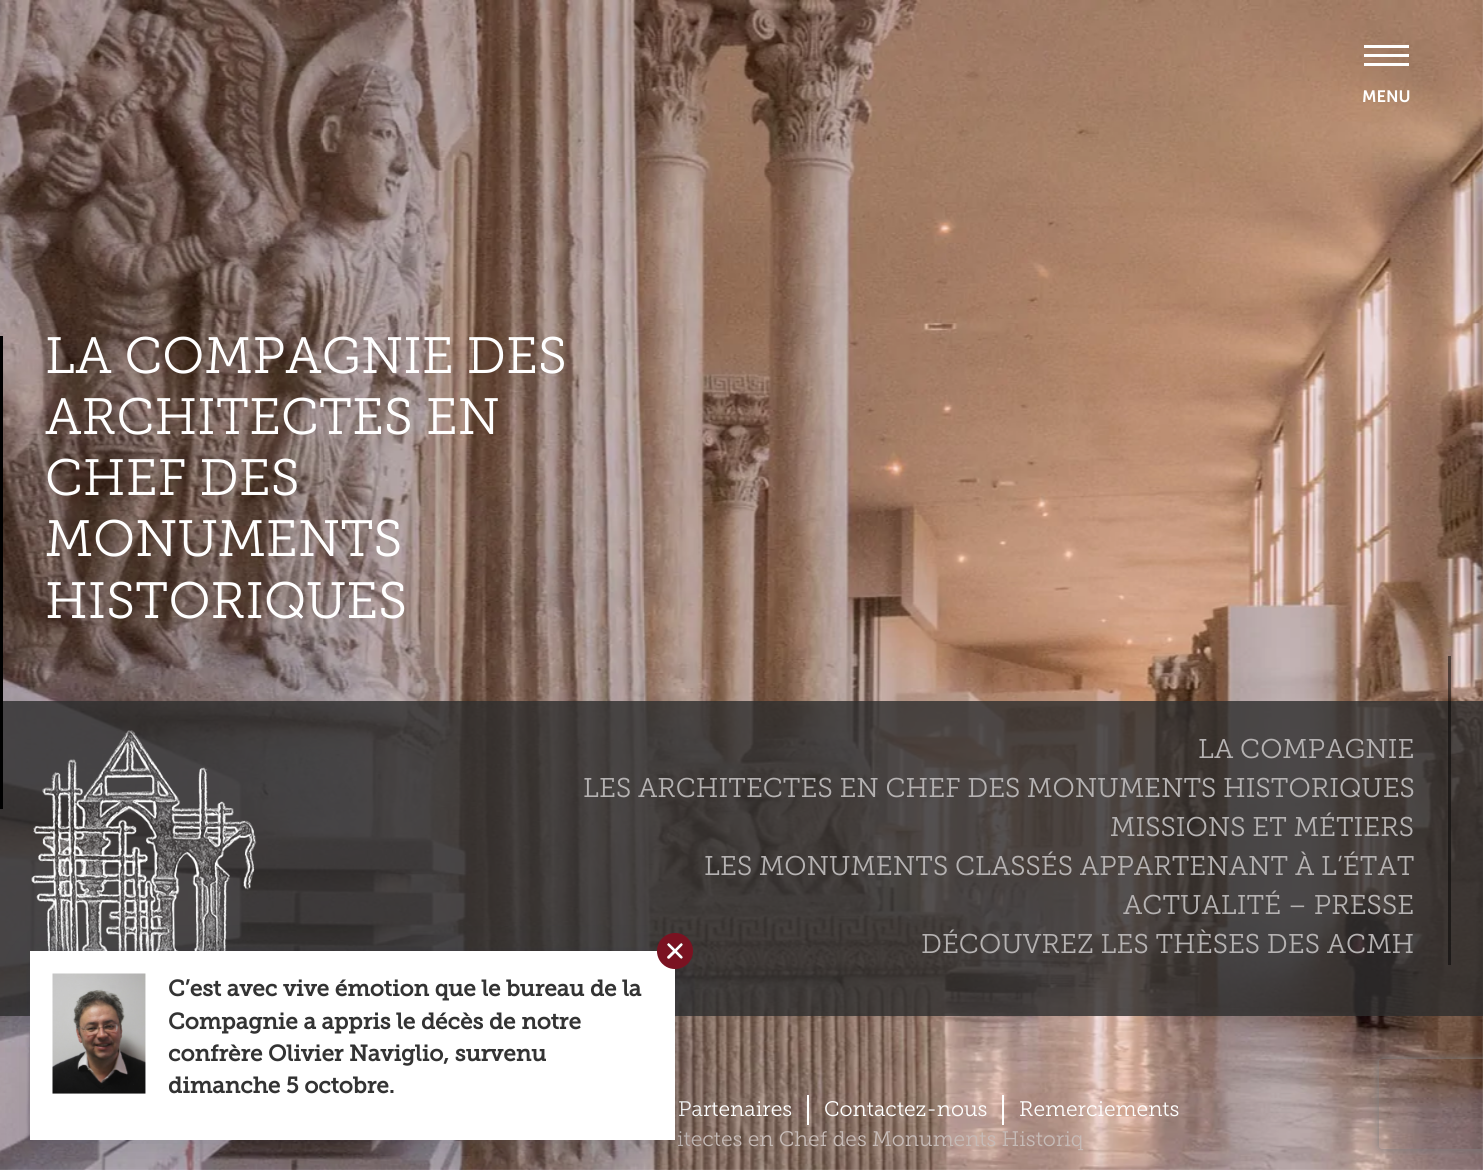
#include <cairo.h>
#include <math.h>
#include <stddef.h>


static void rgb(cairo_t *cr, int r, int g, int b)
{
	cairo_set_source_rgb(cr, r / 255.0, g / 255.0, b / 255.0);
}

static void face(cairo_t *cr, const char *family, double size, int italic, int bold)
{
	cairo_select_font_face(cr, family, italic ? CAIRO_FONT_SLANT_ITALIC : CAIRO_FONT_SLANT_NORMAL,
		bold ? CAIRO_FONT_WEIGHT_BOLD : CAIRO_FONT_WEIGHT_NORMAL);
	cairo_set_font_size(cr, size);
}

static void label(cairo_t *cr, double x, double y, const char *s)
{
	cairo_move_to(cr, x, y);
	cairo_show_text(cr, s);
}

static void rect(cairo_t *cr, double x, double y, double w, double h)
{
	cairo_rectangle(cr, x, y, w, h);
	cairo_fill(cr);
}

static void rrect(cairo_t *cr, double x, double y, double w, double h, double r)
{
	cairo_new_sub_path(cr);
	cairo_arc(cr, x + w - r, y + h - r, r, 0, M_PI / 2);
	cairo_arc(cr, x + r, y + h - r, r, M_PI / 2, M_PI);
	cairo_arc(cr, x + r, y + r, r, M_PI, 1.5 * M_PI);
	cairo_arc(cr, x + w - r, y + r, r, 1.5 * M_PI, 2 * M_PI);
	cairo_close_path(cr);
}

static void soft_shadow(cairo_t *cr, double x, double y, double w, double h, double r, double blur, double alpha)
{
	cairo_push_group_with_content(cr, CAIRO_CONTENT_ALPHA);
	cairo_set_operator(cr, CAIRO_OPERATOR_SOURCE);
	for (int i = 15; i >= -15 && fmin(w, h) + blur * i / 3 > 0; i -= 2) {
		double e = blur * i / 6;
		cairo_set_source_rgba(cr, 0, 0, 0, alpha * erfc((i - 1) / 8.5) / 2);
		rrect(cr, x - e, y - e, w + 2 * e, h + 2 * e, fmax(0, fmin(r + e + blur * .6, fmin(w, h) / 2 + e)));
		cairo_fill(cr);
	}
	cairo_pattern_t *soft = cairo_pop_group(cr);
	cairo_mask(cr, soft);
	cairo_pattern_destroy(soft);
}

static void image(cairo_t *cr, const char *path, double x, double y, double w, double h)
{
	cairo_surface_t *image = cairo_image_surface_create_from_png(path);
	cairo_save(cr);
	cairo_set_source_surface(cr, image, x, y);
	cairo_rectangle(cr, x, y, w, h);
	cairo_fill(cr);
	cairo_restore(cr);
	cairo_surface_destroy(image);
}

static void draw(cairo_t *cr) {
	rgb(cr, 255, 255, 255);
	cairo_paint(cr);
	image(cr, "image0.png", 0, 0, 1483, 1170);
	rgb(cr, 255, 255, 255);
	rect(cr, 1364, 45, 45, 3);
	rect(cr, 1364, 54, 45, 3);
	rect(cr, 1364, 63, 45, 3);
	face(cr, "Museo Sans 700 SemiBold", 16.5, 0, 0);
	label(cr, 1362, 102, "MENU");
	cairo_set_source_rgba(cr, 0.18, 0.18, 0.18, 0.8);
	rect(cr, 0, 701, 1483, 315);
	rgb(cr, 0, 0, 0);
	rect(cr, 0, 336, 3, 473);
	face(cr, "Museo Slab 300 Light", 51, 0, 0);
	rgb(cr, 255, 255, 255);
	label(cr, 45, 373, "LA COMPAGNIE DES");
	label(cr, 45, 434, "ARCHITECTES EN");
	label(cr, 45, 495, "CHEF DES");
	label(cr, 45, 556, "MONUMENTS");
	label(cr, 45, 618, "HISTORIQUES");
	image(cr, "image1.png", 31, 730, 226, 221);
	cairo_set_source_rgba(cr, 0, 0, 0, 0.5);
	rect(cr, 1448, 656, 3, 75);
	rect(cr, 1448, 731, 3, 39);
	face(cr, "Museo Slab 300 Light", 27, 0, 0);
	rgb(cr, 182, 179, 179);
	label(cr, 1198, 758, "LA COMPAGNIE");
	cairo_set_source_rgba(cr, 0, 0, 0, 0.5);
	rect(cr, 1448, 770, 3, 39);
	rgb(cr, 182, 179, 179);
	label(cr, 583, 797, "LES ARCHITECTES EN CHEF DES MONUMENTS HISTORIQUES");
	cairo_set_source_rgba(cr, 0, 0, 0, 0.5);
	rect(cr, 1448, 809, 3, 39);
	rgb(cr, 182, 179, 179);
	label(cr, 1110, 836, "MISSIONS ET MÉTIERS");
	cairo_set_source_rgba(cr, 0, 0, 0, 0.5);
	rect(cr, 1448, 848, 3, 39);
	rgb(cr, 182, 179, 179);
	label(cr, 704, 875, "LES MONUMENTS CLASSÉS APPARTENANT À L’ÉTAT");
	cairo_set_source_rgba(cr, 0, 0, 0, 0.5);
	rect(cr, 1448, 887, 3, 39);
	rgb(cr, 182, 179, 179);
	label(cr, 1123, 914, "ACTUALITÉ – PRESSE");
	cairo_set_source_rgba(cr, 0, 0, 0, 0.5);
	rect(cr, 1448, 926, 3, 39);
	rgb(cr, 182, 179, 179);
	label(cr, 921, 953, "DÉCOUVREZ LES THÈSES DES ACMH");
	face(cr, "Museo Slab 300 Light", 21, 0, 0);
	rgb(cr, 255, 255, 255);
	label(cr, 678, 1116, "Partenaires");
	rect(cr, 807, 1095, 2, 30);
	label(cr, 824, 1116, "Contactez-nous");
	rect(cr, 1002, 1095, 2, 30);
	label(cr, 1019, 1116, "Remerciements");
	rgb(cr, 198, 187, 183);
	label(cr, 677, 1146, "itectes en Chef des Monuments Historiq");
	rgb(cr, 24, 45, 70);
	soft_shadow(cr, 38, 959, 645, 189, 0, 22.5, 0.15);
	rgb(cr, 255, 255, 255);
	rect(cr, 30, 951, 645, 189);
	image(cr, "image2.png", 657, 933, 36, 36);
	image(cr, "image3.png", 52, 973, 94, 121);
	face(cr, "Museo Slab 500", 22.5, 0, 1);
	rgb(cr, 51, 51, 51);
	label(cr, 168, 996, "C’est avec vive émotion que le bureau de la");
	label(cr, 168, 1029, "Compagnie a appris le décès de notre");
	label(cr, 168, 1061, "confrère Olivier Naviglio, survenu");
	label(cr, 168, 1093, "dimanche 5 octobre.");
	cairo_save(cr);
	cairo_set_fill_rule(cr, CAIRO_FILL_RULE_EVEN_ODD);
	cairo_new_path(cr);
	cairo_move_to(cr, 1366, 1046);
	cairo_line_to(cr, 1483, 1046);
	cairo_line_to(cr, 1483, 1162);
	cairo_line_to(cr, 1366, 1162);
	cairo_close_path(cr);
	cairo_move_to(cr, 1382, 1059);
	cairo_line_to(cr, 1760, 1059);
	cairo_curve_to(cr, 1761.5, 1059, 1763, 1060.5, 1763, 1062);
	cairo_line_to(cr, 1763, 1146);
	cairo_curve_to(cr, 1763, 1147.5, 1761.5, 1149, 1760, 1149);
	cairo_line_to(cr, 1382, 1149);
	cairo_curve_to(cr, 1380.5, 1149, 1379, 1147.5, 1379, 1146);
	cairo_line_to(cr, 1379, 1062);
	cairo_curve_to(cr, 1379, 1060.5, 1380.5, 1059, 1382, 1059);
	cairo_close_path(cr);
	cairo_clip(cr);
	rgb(cr, 128, 128, 128);
	soft_shadow(cr, 1379, 1059, 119, 90, 3, 4, 1);
	cairo_restore(cr);
}

int main(void) {
	cairo_surface_t *surface = cairo_image_surface_create(CAIRO_FORMAT_RGB24, 1483, 1170);
	cairo_t *cr = cairo_create(surface);
	cairo_font_options_t *options = cairo_font_options_create();
	cairo_font_options_set_hint_metrics(options, CAIRO_HINT_METRICS_OFF);
	cairo_font_options_set_hint_style(options, CAIRO_HINT_STYLE_NONE);
	cairo_set_font_options(cr, options);
	cairo_set_miter_limit(cr, 4);
	draw(cr);
	cairo_surface_write_to_png(surface, "render.png");
	cairo_font_options_destroy(options);
	cairo_destroy(cr);
	cairo_surface_destroy(surface);
	return 0;
}
